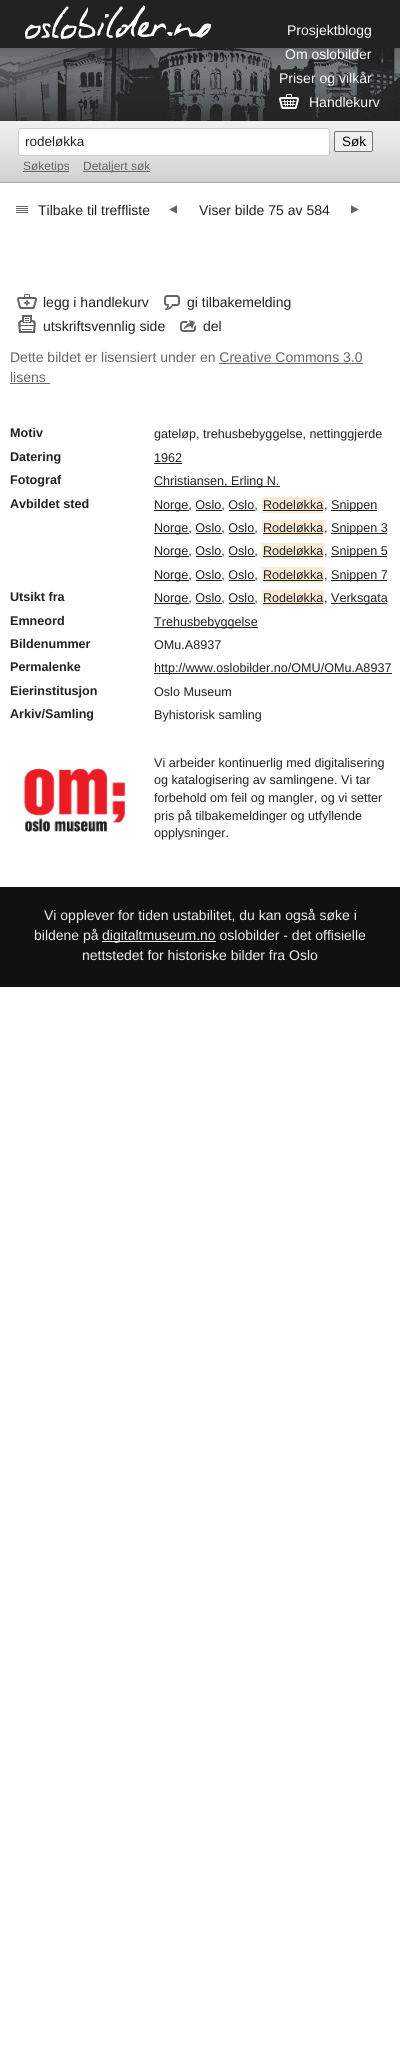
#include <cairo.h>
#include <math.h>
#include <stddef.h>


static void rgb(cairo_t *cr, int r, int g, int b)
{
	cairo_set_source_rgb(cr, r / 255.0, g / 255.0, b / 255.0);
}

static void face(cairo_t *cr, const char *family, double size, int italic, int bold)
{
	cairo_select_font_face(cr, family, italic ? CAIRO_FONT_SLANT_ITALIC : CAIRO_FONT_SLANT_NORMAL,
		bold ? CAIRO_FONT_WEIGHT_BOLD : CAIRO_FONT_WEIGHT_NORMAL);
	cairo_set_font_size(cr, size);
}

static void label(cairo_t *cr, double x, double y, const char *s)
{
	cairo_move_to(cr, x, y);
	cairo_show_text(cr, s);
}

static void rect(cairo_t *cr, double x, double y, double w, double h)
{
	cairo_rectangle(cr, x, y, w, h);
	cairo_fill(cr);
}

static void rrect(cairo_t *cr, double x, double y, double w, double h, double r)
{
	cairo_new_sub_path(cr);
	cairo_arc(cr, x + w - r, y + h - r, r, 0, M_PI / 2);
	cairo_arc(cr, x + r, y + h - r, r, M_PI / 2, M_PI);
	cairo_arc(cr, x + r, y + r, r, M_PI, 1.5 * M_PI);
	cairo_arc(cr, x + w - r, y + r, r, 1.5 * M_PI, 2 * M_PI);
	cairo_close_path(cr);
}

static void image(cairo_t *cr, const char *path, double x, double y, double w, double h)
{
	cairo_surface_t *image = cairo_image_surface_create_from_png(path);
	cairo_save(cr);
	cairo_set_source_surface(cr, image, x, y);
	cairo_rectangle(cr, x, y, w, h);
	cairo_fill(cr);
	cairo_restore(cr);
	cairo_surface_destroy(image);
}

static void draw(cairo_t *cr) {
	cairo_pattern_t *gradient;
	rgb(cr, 255, 255, 255);
	cairo_paint(cr);
	rgb(cr, 34, 34, 34);
	rect(cr, 0, 0, 400, 48);
	image(cr, "image0.png", 0, 48, 400, 73);
	image(cr, "image1.png", 25, 5, 187, 34);
	face(cr, "Liberation Sans", 14, 0, 0);
	rgb(cr, 255, 255, 255);
	label(cr, 287, 35, "Prosjektblogg");
	label(cr, 285, 59, "Om oslobilder");
	label(cr, 279, 83, "Priser og vilkår");
	image(cr, "image2.png", 279, 94, 20, 15);
	label(cr, 309, 107, "Handlekurv");
	gradient = cairo_pattern_create_linear(200, 121, 200, 182);
	cairo_pattern_add_color_stop_rgba(gradient, 0, 0.945, 0.945, 0.945, 1);
	cairo_pattern_add_color_stop_rgba(gradient, 1, 0.82, 0.82, 0.82, 1);
	cairo_set_source(cr, gradient);
	cairo_pattern_destroy(gradient);
	rect(cr, 0, 121, 400, 61);
	rgb(cr, 170, 170, 170);
	rect(cr, 0, 182, 400, 1);
	rgb(cr, 255, 255, 255);
	rrect(cr, 18.5, 128.5, 311, 27, 2.5);
	cairo_fill_preserve(cr);
	rgb(cr, 204, 204, 204);
	cairo_set_line_width(cr, 1);
	cairo_stroke(cr);
	face(cr, "Liberation Sans", 13.5, 0, 0);
	rgb(cr, 34, 34, 34);
	label(cr, 25, 146, "rodeløkka");
	rgb(cr, 239, 239, 239);
	rrect(cr, 334.5, 131.5, 38, 20, 1.5);
	cairo_fill_preserve(cr);
	rgb(cr, 118, 118, 118);
	cairo_stroke(cr);
	rgb(cr, 0, 0, 0);
	label(cr, 342, 146, "Søk");
	rgb(cr, 102, 102, 102);
	rect(cr, 23, 171, 46, 1);
	face(cr, "Liberation Sans", 12, 0, 0);
	label(cr, 23, 170, "Søketips");
	rect(cr, 83, 171, 67, 1);
	label(cr, 83, 170, "Detaljert søk");
	image(cr, "image3.png", 16, 206, 12, 7);
	face(cr, "Liberation Sans", 14, 0, 0);
	rgb(cr, 34, 34, 34);
	label(cr, 38, 215, "Tilbake til treffliste");
	image(cr, "image4.png", 169, 205, 8, 9);
	label(cr, 199, 215, "Viser bilde 75 av 584");
	image(cr, "image5.png", 351, 205, 8, 9);
	image(cr, "image6.png", 17, 294, 20, 15);
	label(cr, 43, 307, "legg i handlekurv");
	image(cr, "image7.png", 164, 295, 16, 15);
	label(cr, 187, 307, "gi tilbakemelding");
	image(cr, "image8.png", 18, 315, 18, 18);
	label(cr, 43, 331, "utskriftsvennlig side");
	image(cr, "image9.png", 180, 320, 16, 12);
	label(cr, 203, 331, "del");
	rgb(cr, 102, 102, 102);
	label(cr, 10, 362, "Dette bildet er lisensiert under en Creative Commons 3.0");
	label(cr, 10, 382, "lisens");
	rect(cr, 219, 363, 144, 1);
	rect(cr, 10, 383, 40, 1);
	face(cr, "Liberation Sans", 12.6, 0, 1);
	rgb(cr, 34, 34, 34);
	label(cr, 10, 437, "Motiv");
	face(cr, "Liberation Sans", 12.6, 0, 0);
	label(cr, 154, 438, "gateløp, trehusbebyggelse, nettinggjerde");
	face(cr, "Liberation Sans", 12.6, 0, 1);
	label(cr, 10, 461, "Datering");
	face(cr, "Liberation Sans", 12.6, 0, 0);
	label(cr, 154, 462, "1962");
	rect(cr, 154, 463, 28, 1);
	face(cr, "Liberation Sans", 12.6, 0, 1);
	label(cr, 10, 484, "Fotograf");
	rect(cr, 154, 486, 126, 1);
	face(cr, "Liberation Sans", 12.6, 0, 0);
	label(cr, 154, 485, "Christiansen, Erling N.");
	face(cr, "Liberation Sans", 12.6, 0, 1);
	label(cr, 10, 508, "Avbildet sted");
	rect(cr, 154, 510, 35, 1);
	face(cr, "Liberation Sans", 12.6, 0, 0);
	label(cr, 154, 509, "Norge, Oslo, Oslo,");
	rgb(cr, 250, 235, 215);
	rect(cr, 262, 497, 62, 16);
	rgb(cr, 34, 34, 34);
	label(cr, 263, 509, "Rodeløkka");
	rect(cr, 263, 510, 60, 1);
	label(cr, 324, 509, ",");
	rect(cr, 331, 510, 46, 1);
	label(cr, 331, 509, "Snippen");
	rect(cr, 196, 510, 26, 1);
	rect(cr, 229, 510, 26, 1);
	rect(cr, 154, 533, 35, 1);
	label(cr, 154, 532, "Norge, Oslo, Oslo,");
	rgb(cr, 250, 235, 215);
	rect(cr, 262, 520, 62, 16);
	rgb(cr, 34, 34, 34);
	label(cr, 263, 532, "Rodeløkka");
	rect(cr, 263, 533, 60, 1);
	label(cr, 324, 532, ",");
	rect(cr, 331, 533, 56, 1);
	label(cr, 331, 532, "Snippen 3");
	rect(cr, 196, 533, 26, 1);
	rect(cr, 229, 533, 26, 1);
	rect(cr, 154, 556, 35, 1);
	label(cr, 154, 555, "Norge, Oslo, Oslo,");
	rgb(cr, 250, 235, 215);
	rect(cr, 262, 543, 62, 16);
	rgb(cr, 34, 34, 34);
	label(cr, 263, 555, "Rodeløkka");
	rect(cr, 263, 556, 60, 1);
	label(cr, 324, 555, ",");
	rect(cr, 331, 556, 56, 1);
	label(cr, 331, 555, "Snippen 5");
	rect(cr, 196, 556, 26, 1);
	rect(cr, 229, 556, 26, 1);
	rect(cr, 154, 580, 35, 1);
	label(cr, 154, 579, "Norge, Oslo, Oslo,");
	rgb(cr, 250, 235, 215);
	rect(cr, 262, 567, 62, 16);
	rgb(cr, 34, 34, 34);
	label(cr, 263, 579, "Rodeløkka");
	rect(cr, 263, 580, 60, 1);
	label(cr, 324, 579, ",");
	rect(cr, 331, 580, 56, 1);
	label(cr, 331, 579, "Snippen 7");
	rect(cr, 196, 580, 26, 1);
	rect(cr, 229, 580, 26, 1);
	face(cr, "Liberation Sans", 12.6, 0, 1);
	label(cr, 10, 601, "Utsikt fra");
	rect(cr, 154, 603, 35, 1);
	face(cr, "Liberation Sans", 12.6, 0, 0);
	label(cr, 154, 602, "Norge, Oslo, Oslo,");
	rgb(cr, 250, 235, 215);
	rect(cr, 262, 590, 62, 16);
	rgb(cr, 34, 34, 34);
	label(cr, 263, 602, "Rodeløkka");
	rect(cr, 263, 603, 60, 1);
	label(cr, 324, 602, ",");
	rect(cr, 331, 603, 56, 1);
	label(cr, 331, 602, "Verksgata");
	rect(cr, 196, 603, 26, 1);
	rect(cr, 229, 603, 26, 1);
	face(cr, "Liberation Sans", 12.6, 0, 1);
	label(cr, 10, 625, "Emneord");
	rect(cr, 154, 627, 104, 1);
	face(cr, "Liberation Sans", 12.6, 0, 0);
	label(cr, 154, 626, "Trehusbebyggelse");
	face(cr, "Liberation Sans", 12.6, 0, 1);
	label(cr, 10, 648, "Bildenummer");
	face(cr, "Liberation Sans", 12.6, 0, 0);
	label(cr, 154, 649, "OMu.A8937");
	face(cr, "Liberation Sans", 12.6, 0, 1);
	label(cr, 10, 671, "Permalenke");
	rect(cr, 154, 673, 238, 1);
	face(cr, "Liberation Sans", 12.6, 0, 0);
	label(cr, 154, 672, "http://www.oslobilder.no/OMU/OMu.A8937");
	face(cr, "Liberation Sans", 12.6, 0, 1);
	label(cr, 10, 695, "Eierinstitusjon");
	face(cr, "Liberation Sans", 12.6, 0, 0);
	label(cr, 154, 696, "Oslo Museum");
	face(cr, "Liberation Sans", 12.6, 0, 1);
	label(cr, 10, 718, "Arkiv/Samling");
	face(cr, "Liberation Sans", 12.6, 0, 0);
	label(cr, 154, 719, "Byhistorisk samling");
	image(cr, "image10.png", 24, 768, 102, 64);
	label(cr, 154, 767, "Vi arbeider kontinuerlig med digitalisering");
	label(cr, 154, 784, "og katalogisering av samlingene. Vi tar");
	label(cr, 154, 802, "forbehold om feil og mangler, og vi setter");
	label(cr, 154, 820, "pris på tilbakemeldinger og utfyllende");
	label(cr, 154, 837, "opplysninger.");
	rgb(cr, 17, 17, 17);
	rect(cr, 0, 887, 400, 100);
	face(cr, "Liberation Sans", 14, 0, 0);
	rgb(cr, 238, 238, 238);
	label(cr, 44, 920, "Vi opplever for tiden ustabilitet, du kan også søke i");
	label(cr, 34, 940, "bildene på");
	rect(cr, 102, 941, 114, 1);
	label(cr, 102, 940, "digitaltmuseum.no oslobilder - det offisielle");
	label(cr, 82, 960, "nettstedet for historiske bilder fra Oslo");
}

int main(void) {
	cairo_surface_t *surface = cairo_image_surface_create(CAIRO_FORMAT_RGB24, 400, 2064);
	cairo_t *cr = cairo_create(surface);
	cairo_font_options_t *options = cairo_font_options_create();
	cairo_font_options_set_hint_metrics(options, CAIRO_HINT_METRICS_OFF);
	cairo_font_options_set_hint_style(options, CAIRO_HINT_STYLE_NONE);
	cairo_set_font_options(cr, options);
	cairo_set_miter_limit(cr, 4);
	draw(cr);
	cairo_surface_write_to_png(surface, "render.png");
	cairo_font_options_destroy(options);
	cairo_destroy(cr);
	cairo_surface_destroy(surface);
	return 0;
}
